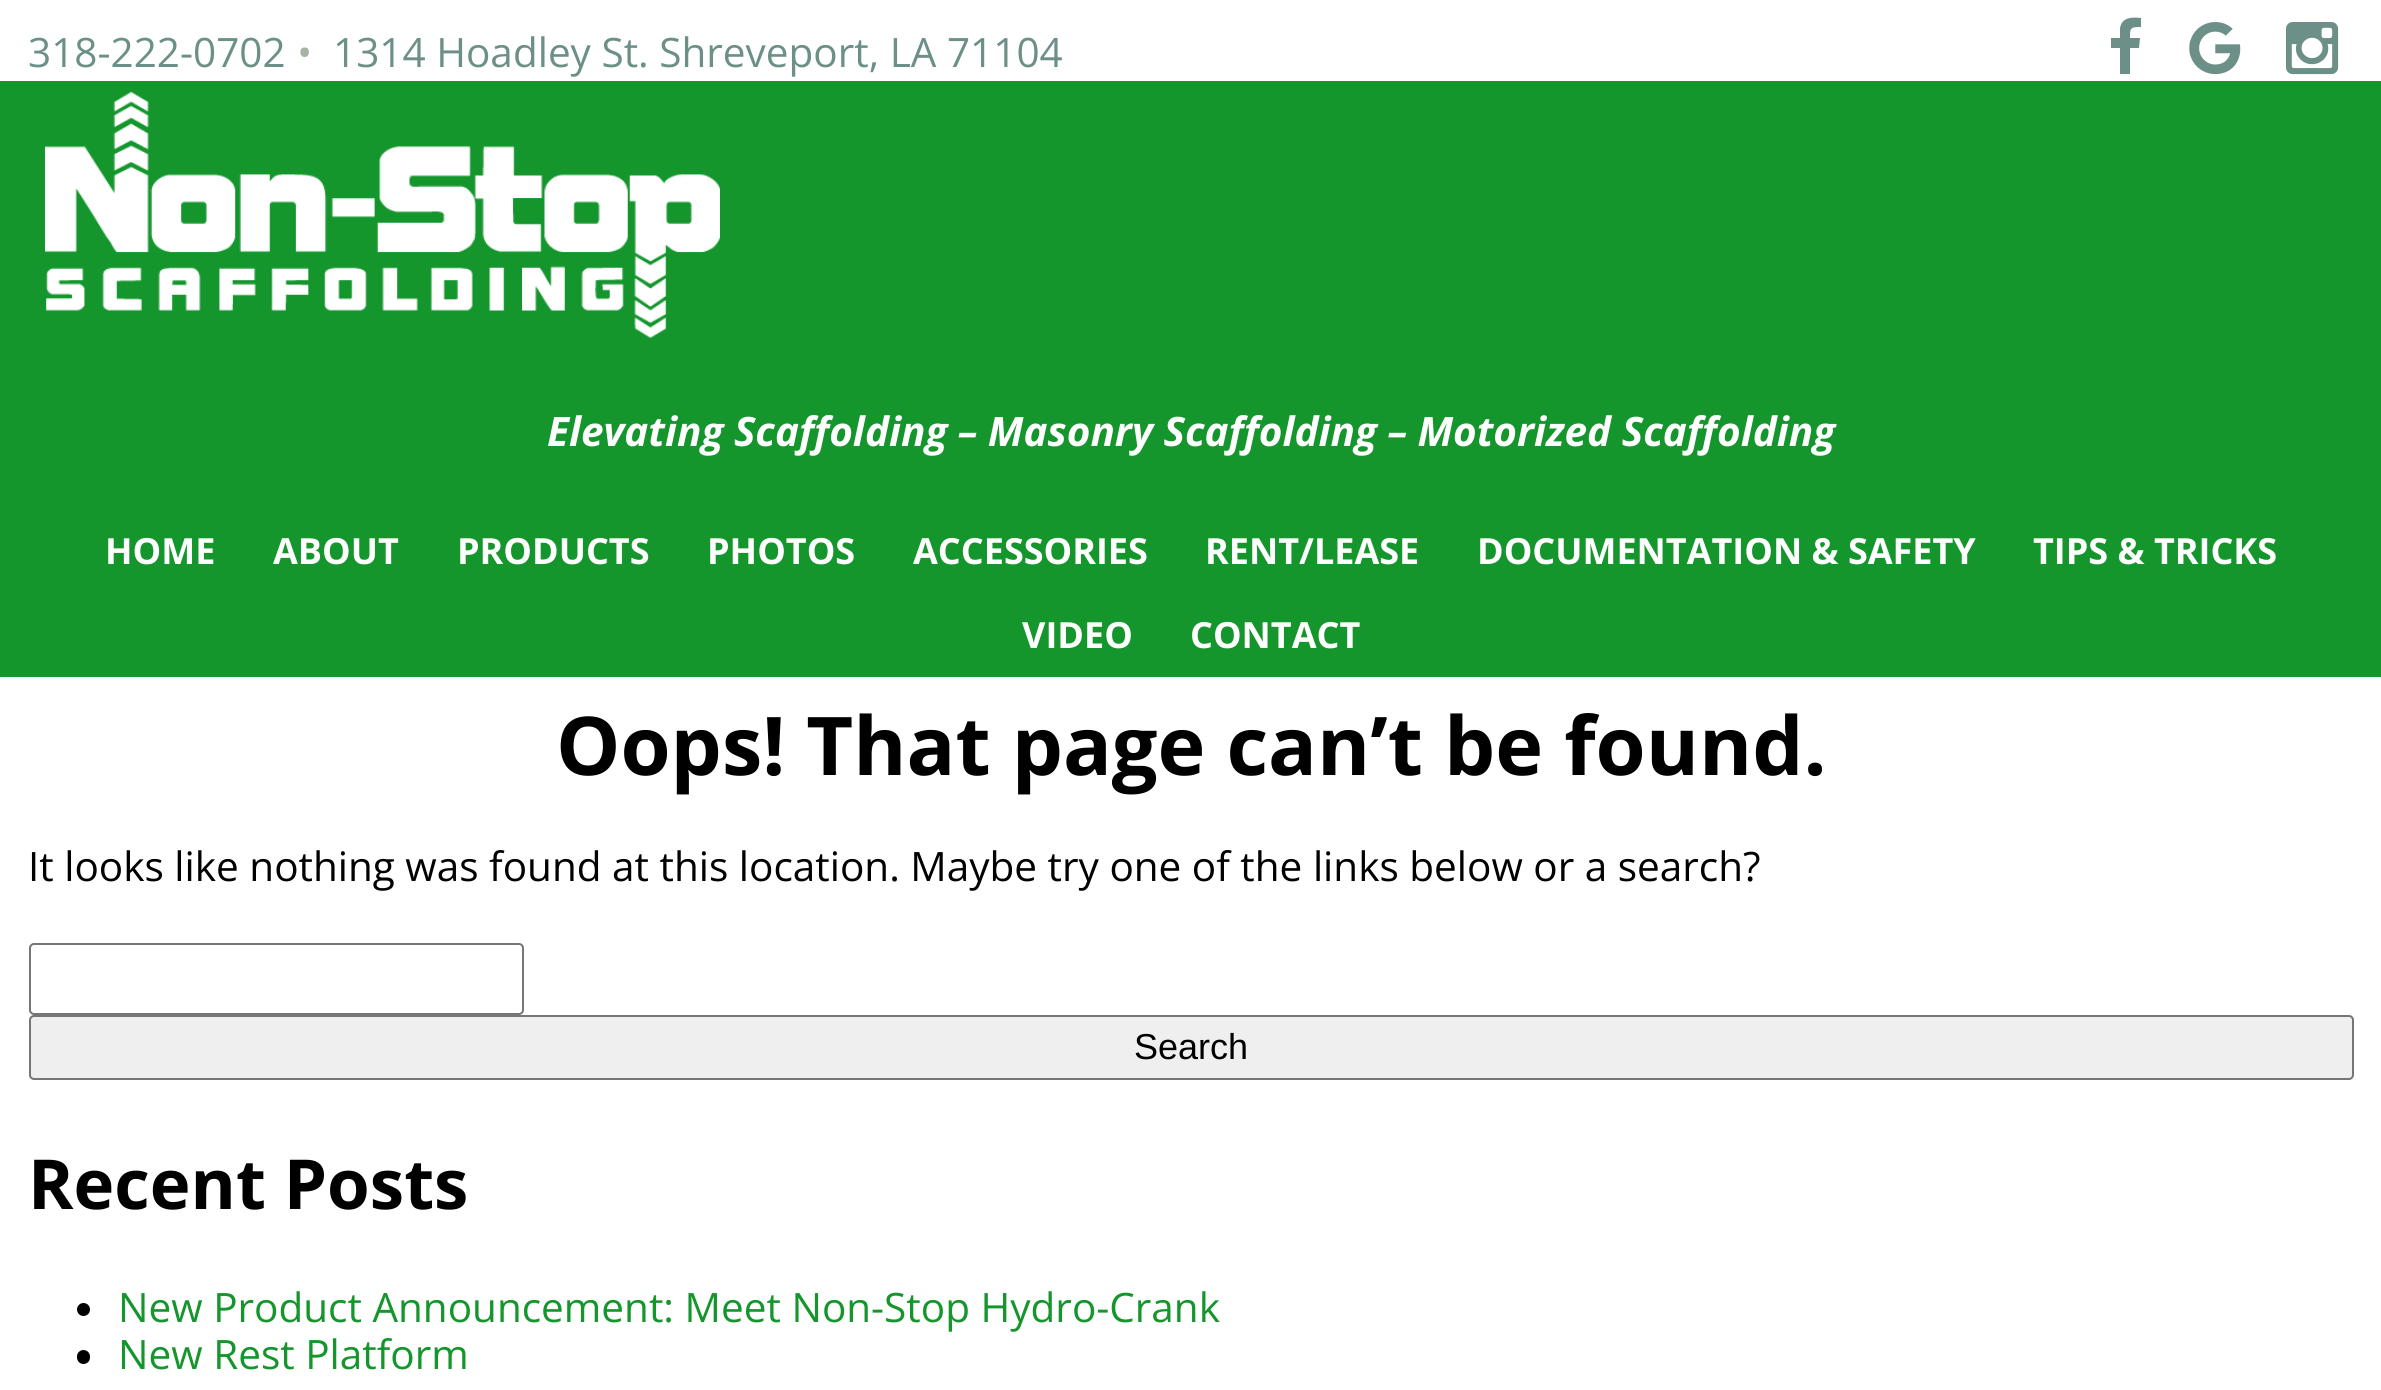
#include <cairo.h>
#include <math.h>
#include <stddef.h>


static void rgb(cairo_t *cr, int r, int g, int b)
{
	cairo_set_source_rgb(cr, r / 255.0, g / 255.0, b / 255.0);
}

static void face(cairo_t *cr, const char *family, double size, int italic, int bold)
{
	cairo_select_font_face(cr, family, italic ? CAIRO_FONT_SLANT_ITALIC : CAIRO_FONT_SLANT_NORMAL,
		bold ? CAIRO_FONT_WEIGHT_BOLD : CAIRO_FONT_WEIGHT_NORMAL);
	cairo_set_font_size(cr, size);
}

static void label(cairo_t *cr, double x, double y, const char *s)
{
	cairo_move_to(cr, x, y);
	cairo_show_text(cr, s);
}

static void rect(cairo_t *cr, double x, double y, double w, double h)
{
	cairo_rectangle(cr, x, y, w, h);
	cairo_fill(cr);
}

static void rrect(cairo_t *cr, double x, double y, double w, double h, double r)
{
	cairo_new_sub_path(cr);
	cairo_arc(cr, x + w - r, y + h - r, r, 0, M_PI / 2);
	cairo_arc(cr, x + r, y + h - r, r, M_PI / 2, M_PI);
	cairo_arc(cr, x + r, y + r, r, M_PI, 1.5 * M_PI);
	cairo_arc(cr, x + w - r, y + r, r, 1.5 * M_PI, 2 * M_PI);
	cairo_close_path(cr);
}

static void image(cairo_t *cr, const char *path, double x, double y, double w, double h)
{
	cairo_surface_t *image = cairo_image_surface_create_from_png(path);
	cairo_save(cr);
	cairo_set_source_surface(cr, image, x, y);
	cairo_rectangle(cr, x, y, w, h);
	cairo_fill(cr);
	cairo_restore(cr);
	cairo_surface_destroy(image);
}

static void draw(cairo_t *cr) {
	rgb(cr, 255, 255, 255);
	cairo_paint(cr);
	face(cr, "Open Sans", 40.5, 0, 0);
	rgb(cr, 108, 144, 135);
	label(cr, 28, 67, "318-222-0702");
	rgb(cr, 168, 179, 168);
	label(cr, 297, 67, "•");
	rgb(cr, 108, 144, 135);
	label(cr, 333, 67, "1314 Hoadley St. Shreveport, LA 71104");
	cairo_new_path(cr);
	cairo_move_to(cr, 2141, 18);
	cairo_line_to(cr, 2141, 27);
	cairo_curve_to(cr, 2130, 27, 2130, 28, 2130, 38);
	cairo_line_to(cr, 2140, 38);
	cairo_line_to(cr, 2139, 48);
	cairo_line_to(cr, 2130, 48);
	cairo_line_to(cr, 2130, 74);
	cairo_line_to(cr, 2120, 74);
	cairo_line_to(cr, 2120, 48);
	cairo_line_to(cr, 2111, 48);
	cairo_line_to(cr, 2111, 38);
	cairo_line_to(cr, 2120, 38);
	cairo_line_to(cr, 2120, 28);
	cairo_curve_to(cr, 2122, 17, 2132, 17, 2141, 18);
	cairo_close_path(cr);
	cairo_fill(cr);
	image(cr, "image0.png", 2189, 22, 52, 53);
	image(cr, "image1.png", 2286, 22, 53, 53);
	rgb(cr, 20, 150, 45);
	rect(cr, 0, 81, 2381, 596);
	image(cr, "image2.png", 45, 92, 675, 246);
	face(cr, "Open Sans", 40.5, 1, 1);
	rgb(cr, 255, 255, 255);
	label(cr, 547, 446, "Elevating Scaffolding – Masonry Scaffolding – Motorized Scaffolding");
	face(cr, "Open Sans", 36, 0, 1);
	label(cr, 105, 564, "HOME");
	label(cr, 273, 564, "ABOUT");
	label(cr, 457, 564, "PRODUCTS");
	label(cr, 707, 564, "PHOTOS");
	label(cr, 913, 564, "ACCESSORIES");
	label(cr, 1205, 564, "RENT/LEASE");
	label(cr, 1477, 564, "DOCUMENTATION & SAFETY");
	label(cr, 2033, 564, "TIPS & TRICKS");
	label(cr, 1022, 648, "VIDEO");
	label(cr, 1190, 648, "CONTACT");
	face(cr, "Open Sans", 81, 0, 1);
	rgb(cr, 0, 0, 0);
	label(cr, 556, 775, "Oops! That page can’t be found.");
	face(cr, "Open Sans", 40.5, 0, 0);
	label(cr, 28, 881, "It looks like nothing was found at this location. Maybe try one of the links below or a search?");
	rrect(cr, 30, 944, 493, 70, 4);
	rgb(cr, 118, 118, 118);
	cairo_stroke(cr);
	rgb(cr, 239, 239, 239);
	rrect(cr, 30, 1016, 2323, 63, 4);
	cairo_fill_preserve(cr);
	rgb(cr, 118, 118, 118);
	cairo_stroke(cr);
	face(cr, "Liberation Sans", 36, 0, 0);
	rgb(cr, 0, 0, 0);
	label(cr, 1134, 1059, "Search");
	face(cr, "Open Sans", 69, 0, 1);
	label(cr, 28, 1209, "Recent Posts");
	cairo_new_path(cr);
	cairo_arc(cr, 83.5, 1309.5, 6.5, 0, 2 * M_PI);
	cairo_fill(cr);
	face(cr, "Open Sans", 40.5, 0, 0);
	rgb(cr, 20, 150, 44);
	label(cr, 118, 1322, "New Product Announcement: Meet Non-Stop Hydro-Crank");
	rgb(cr, 0, 0, 0);
	rrect(cr, 77, 1350, 13, 14, 6.5);
	cairo_fill(cr);
	rgb(cr, 20, 150, 44);
	label(cr, 118, 1369, "New Rest Platform");
}

int main(void) {
	cairo_surface_t *surface = cairo_image_surface_create(CAIRO_FORMAT_RGB24, 2381, 1390);
	cairo_t *cr = cairo_create(surface);
	cairo_font_options_t *options = cairo_font_options_create();
	cairo_font_options_set_hint_metrics(options, CAIRO_HINT_METRICS_OFF);
	cairo_font_options_set_hint_style(options, CAIRO_HINT_STYLE_NONE);
	cairo_set_font_options(cr, options);
	cairo_set_miter_limit(cr, 4);
	draw(cr);
	cairo_surface_write_to_png(surface, "render.png");
	cairo_font_options_destroy(options);
	cairo_destroy(cr);
	cairo_surface_destroy(surface);
	return 0;
}
